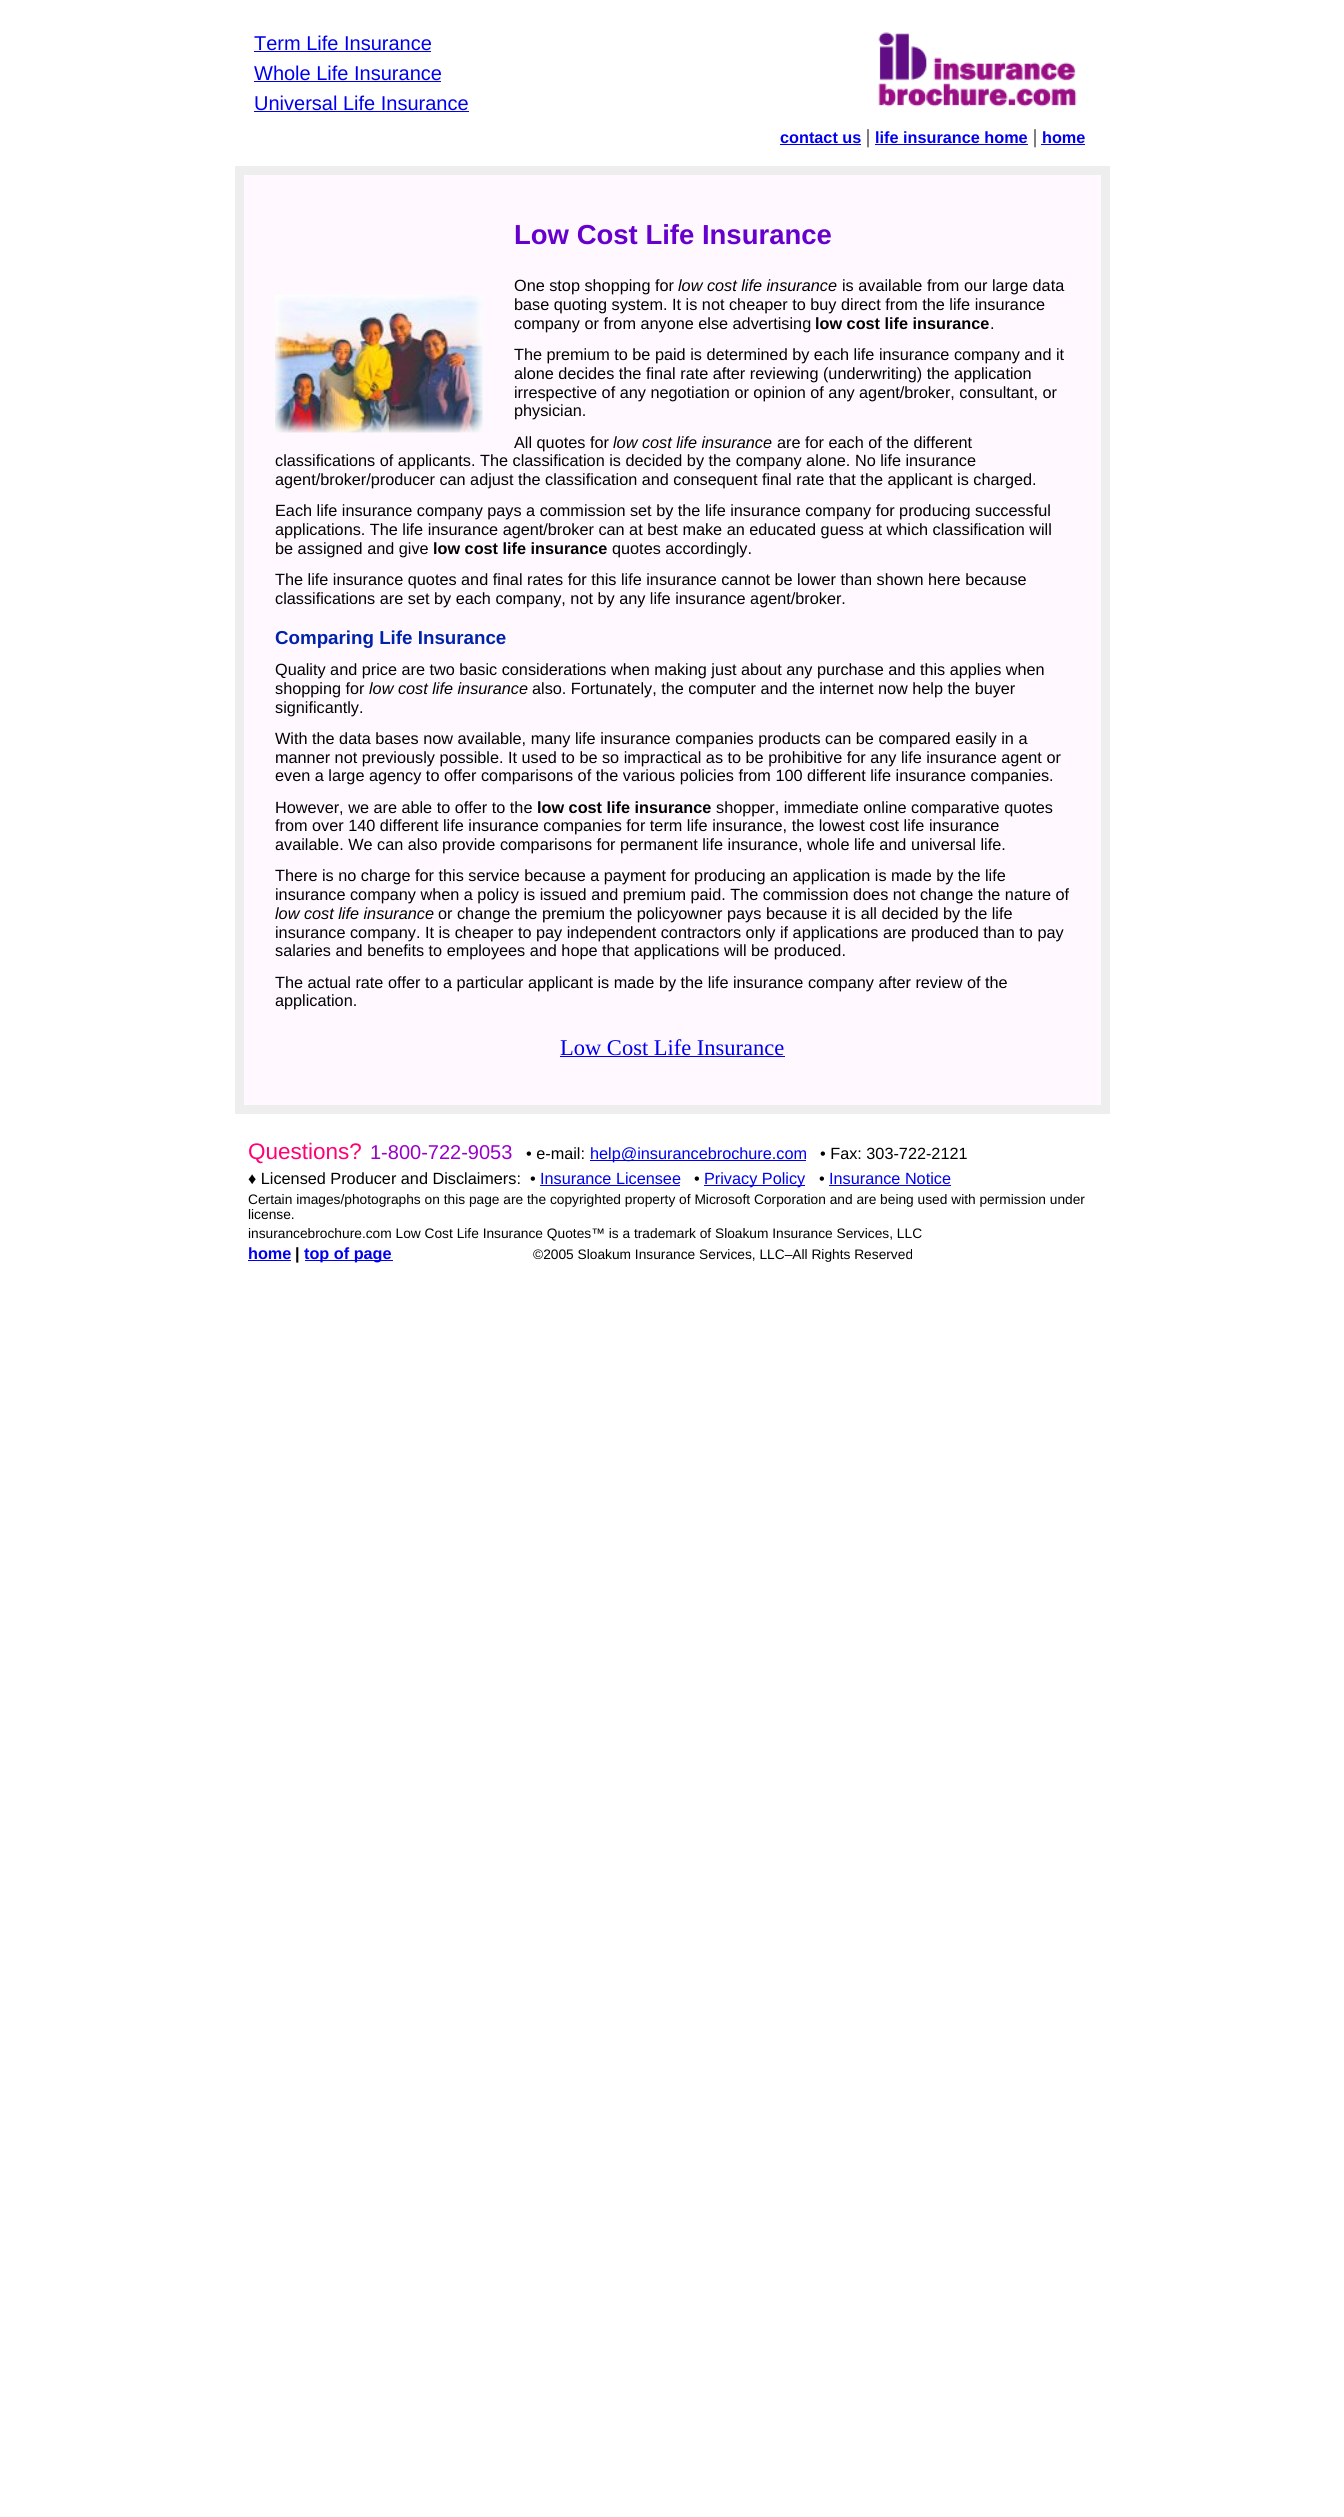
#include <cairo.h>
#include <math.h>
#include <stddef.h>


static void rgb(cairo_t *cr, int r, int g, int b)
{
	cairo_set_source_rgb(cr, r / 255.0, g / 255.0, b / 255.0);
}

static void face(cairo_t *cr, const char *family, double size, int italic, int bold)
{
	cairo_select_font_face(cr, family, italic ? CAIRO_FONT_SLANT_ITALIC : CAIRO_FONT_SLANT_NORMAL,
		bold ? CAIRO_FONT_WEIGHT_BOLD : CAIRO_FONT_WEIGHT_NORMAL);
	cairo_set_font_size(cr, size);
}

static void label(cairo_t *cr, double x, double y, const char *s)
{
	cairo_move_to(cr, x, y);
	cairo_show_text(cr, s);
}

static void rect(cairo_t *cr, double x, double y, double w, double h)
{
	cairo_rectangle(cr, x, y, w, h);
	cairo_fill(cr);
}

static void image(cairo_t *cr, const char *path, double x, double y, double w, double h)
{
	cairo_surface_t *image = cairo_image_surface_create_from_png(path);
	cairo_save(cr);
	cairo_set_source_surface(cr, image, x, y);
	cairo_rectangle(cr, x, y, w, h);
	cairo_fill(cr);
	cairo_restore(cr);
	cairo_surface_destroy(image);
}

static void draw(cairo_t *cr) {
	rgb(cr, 255, 255, 255);
	cairo_paint(cr);
	image(cr, "image0.png", 878, 32, 199, 75);
	face(cr, "Liberation Sans", 20, 0, 0);
	rgb(cr, 0, 0, 238);
	label(cr, 254, 50, "Term Life Insurance");
	rect(cr, 254, 51, 177, 1);
	label(cr, 254, 80, "Whole Life Insurance");
	rect(cr, 254, 81, 187, 1);
	label(cr, 254, 110, "Universal Life Insurance");
	rect(cr, 254, 111, 215, 1);
	face(cr, "Liberation Sans", 16.25, 0, 1);
	label(cr, 780, 143, "contact us");
	rect(cr, 780, 144, 81, 1);
	face(cr, "Liberation Serif", 20, 0, 0);
	rgb(cr, 0, 0, 0);
	label(cr, 866, 143, "|");
	face(cr, "Liberation Sans", 16.25, 0, 1);
	rgb(cr, 0, 0, 238);
	label(cr, 875, 143, "life insurance home");
	rect(cr, 875, 144, 153, 1);
	face(cr, "Liberation Serif", 20, 0, 0);
	rgb(cr, 0, 0, 0);
	label(cr, 1033, 143, "|");
	face(cr, "Liberation Sans", 16.25, 0, 1);
	rgb(cr, 0, 0, 238);
	label(cr, 1042, 143, "home");
	rect(cr, 1041, 144, 44, 1);
	rgb(cr, 255, 249, 255);
	cairo_rectangle(cr, 239.5, 170.5, 866, 939);
	cairo_fill_preserve(cr);
	rgb(cr, 238, 238, 238);
	cairo_set_line_width(cr, 9);
	cairo_stroke(cr);
	face(cr, "Liberation Sans", 27.5, 0, 1);
	rgb(cr, 102, 0, 204);
	label(cr, 514, 244, "Low Cost Life Insurance");
	image(cr, "image1.png", 275, 295, 208, 138);
	face(cr, "Liberation Sans", 16.25, 0, 0);
	rgb(cr, 0, 0, 0);
	label(cr, 514, 291, "One stop shopping for");
	face(cr, "Liberation Sans", 16.25, 1, 0);
	label(cr, 678, 291, "low cost life insurance");
	face(cr, "Liberation Sans", 16.25, 0, 0);
	label(cr, 842, 291, "is available from our large data");
	label(cr, 514, 310, "base quoting system. It is not cheaper to buy direct from the life insurance");
	label(cr, 514, 329, "company or from anyone else advertising");
	face(cr, "Liberation Sans", 16.25, 0, 1);
	label(cr, 815, 329, "low cost life insurance");
	face(cr, "Liberation Sans", 16.25, 0, 0);
	label(cr, 990, 329, ".");
	label(cr, 514, 360, "The premium to be paid is determined by each life insurance company and it");
	label(cr, 514, 379, "alone decides the final rate after reviewing (underwriting) the application");
	label(cr, 514, 398, "irrespective of any negotiation or opinion of any agent/broker, consultant, or");
	label(cr, 514, 416, "physician.");
	label(cr, 514, 448, "All quotes for");
	face(cr, "Liberation Sans", 16.25, 1, 0);
	label(cr, 613, 448, "low cost life insurance");
	face(cr, "Liberation Sans", 16.25, 0, 0);
	label(cr, 777, 448, "are for each of the different");
	label(cr, 275, 466, "classifications of applicants. The classification is decided by the company alone. No life insurance");
	label(cr, 275, 485, "agent/broker/producer can adjust the classification and consequent final rate that the applicant is charged.");
	label(cr, 275, 516, "Each life insurance company pays a commission set by the life insurance company for producing successful");
	label(cr, 275, 535, "applications. The life insurance agent/broker can at best make an educated guess at which classification will");
	label(cr, 275, 554, "be assigned and give");
	face(cr, "Liberation Sans", 16.25, 0, 1);
	label(cr, 433, 554, "low cost life insurance");
	face(cr, "Liberation Sans", 16.25, 0, 0);
	label(cr, 612, 554, "quotes accordingly.");
	label(cr, 275, 585, "The life insurance quotes and final rates for this life insurance cannot be lower than shown here because");
	label(cr, 275, 604, "classifications are set by each company, not by any life insurance agent/broker.");
	face(cr, "Liberation Sans", 18.75, 0, 1);
	rgb(cr, 0, 34, 170);
	label(cr, 275, 644, "Comparing Life Insurance");
	face(cr, "Liberation Sans", 16.25, 0, 0);
	rgb(cr, 0, 0, 0);
	label(cr, 275, 675, "Quality and price are two basic considerations when making just about any purchase and this applies when");
	label(cr, 275, 694, "shopping for");
	face(cr, "Liberation Sans", 16.25, 1, 0);
	label(cr, 369, 694, "low cost life insurance");
	face(cr, "Liberation Sans", 16.25, 0, 0);
	label(cr, 532, 694, "also. Fortunately, the computer and the internet now help the buyer");
	label(cr, 275, 713, "significantly.");
	label(cr, 275, 744, "With the data bases now available, many life insurance companies products can be compared easily in a");
	label(cr, 275, 763, "manner not previously possible. It used to be so impractical as to be prohibitive for any life insurance agent or");
	label(cr, 275, 781, "even a large agency to offer comparisons of the various policies from 100 different life insurance companies.");
	label(cr, 275, 813, "However, we are able to offer to the");
	face(cr, "Liberation Sans", 16.25, 0, 1);
	label(cr, 537, 813, "low cost life insurance");
	face(cr, "Liberation Sans", 16.25, 0, 0);
	label(cr, 716, 813, "shopper, immediate online comparative quotes");
	label(cr, 275, 831, "from over 140 different life insurance companies for term life insurance, the lowest cost life insurance");
	label(cr, 275, 850, "available. We can also provide comparisons for permanent life insurance, whole life and universal life.");
	label(cr, 275, 881, "There is no charge for this service because a payment for producing an application is made by the life");
	label(cr, 275, 900, "insurance company when a policy is issued and premium paid. The commission does not change the nature of");
	face(cr, "Liberation Sans", 16.25, 1, 0);
	label(cr, 275, 919, "low cost life insurance");
	face(cr, "Liberation Sans", 16.25, 0, 0);
	label(cr, 438, 919, "or change the premium the policyowner pays because it is all decided by the life");
	label(cr, 275, 938, "insurance company. It is cheaper to pay independent contractors only if applications are produced than to pay");
	label(cr, 275, 956, "salaries and benefits to employees and hope that applications will be produced.");
	label(cr, 275, 988, "The actual rate offer to a particular applicant is made by the life insurance company after review of the");
	label(cr, 275, 1006, "application.");
	face(cr, "Liberation Serif", 22.5, 0, 0);
	rgb(cr, 0, 0, 238);
	label(cr, 560, 1055, "Low Cost Life Insurance");
	rect(cr, 560, 1056, 225, 1);
	face(cr, "Liberation Sans", 22.5, 0, 0);
	rgb(cr, 255, 0, 119);
	label(cr, 248, 1159, "Questions?");
	face(cr, "Liberation Sans", 20, 0, 0);
	rgb(cr, 153, 0, 204);
	label(cr, 370, 1159, "1-800-722-9053");
	face(cr, "Liberation Sans", 16.25, 0, 0);
	rgb(cr, 0, 0, 0);
	label(cr, 526, 1159, "• e-mail:");
	rgb(cr, 0, 0, 238);
	rect(cr, 590, 1160, 216, 1);
	label(cr, 590, 1159, "help@insurancebrochure.com");
	rgb(cr, 0, 0, 0);
	label(cr, 820, 1159, "• Fax: 303-722-2121");
	label(cr, 248, 1184, "♦ Licensed Producer and Disclaimers:  •");
	rgb(cr, 0, 0, 238);
	label(cr, 540, 1184, "Insurance Licensee");
	rect(cr, 540, 1185, 140, 1);
	rgb(cr, 0, 0, 0);
	label(cr, 694, 1184, "•");
	rgb(cr, 0, 0, 238);
	rect(cr, 704, 1185, 101, 1);
	label(cr, 704, 1184, "Privacy Policy");
	rgb(cr, 0, 0, 0);
	label(cr, 819, 1184, "•");
	rgb(cr, 0, 0, 238);
	label(cr, 829, 1184, "Insurance Notice");
	rect(cr, 829, 1185, 122, 1);
	face(cr, "Liberation Sans", 13.75, 0, 0);
	rgb(cr, 0, 0, 0);
	label(cr, 248, 1204, "Certain images/photographs on this page are the copyrighted property of Microsoft Corporation and are being used with permission under");
	label(cr, 248, 1219, "license.");
	label(cr, 248, 1238, "insurancebrochure.com Low Cost Life Insurance Quotes™ is a trademark of Sloakum Insurance Services, LLC");
	face(cr, "Liberation Sans", 16.25, 0, 1);
	rgb(cr, 0, 0, 238);
	label(cr, 248, 1259, "home");
	rect(cr, 248, 1260, 43, 1);
	rgb(cr, 0, 0, 0);
	label(cr, 295, 1259, "|");
	rgb(cr, 0, 0, 238);
	rect(cr, 305, 1260, 88, 1);
	label(cr, 304, 1259, "top of page");
	face(cr, "Liberation Sans", 13.75, 0, 0);
	rgb(cr, 0, 0, 0);
	label(cr, 533, 1259, "©2005 Sloakum Insurance Services, LLC–All Rights Reserved");
}

int main(void) {
	cairo_surface_t *surface = cairo_image_surface_create(CAIRO_FORMAT_RGB24, 1344, 2517);
	cairo_t *cr = cairo_create(surface);
	cairo_font_options_t *options = cairo_font_options_create();
	cairo_font_options_set_hint_metrics(options, CAIRO_HINT_METRICS_OFF);
	cairo_font_options_set_hint_style(options, CAIRO_HINT_STYLE_NONE);
	cairo_set_font_options(cr, options);
	cairo_set_miter_limit(cr, 4);
	draw(cr);
	cairo_surface_write_to_png(surface, "render.png");
	cairo_font_options_destroy(options);
	cairo_destroy(cr);
	cairo_surface_destroy(surface);
	return 0;
}
